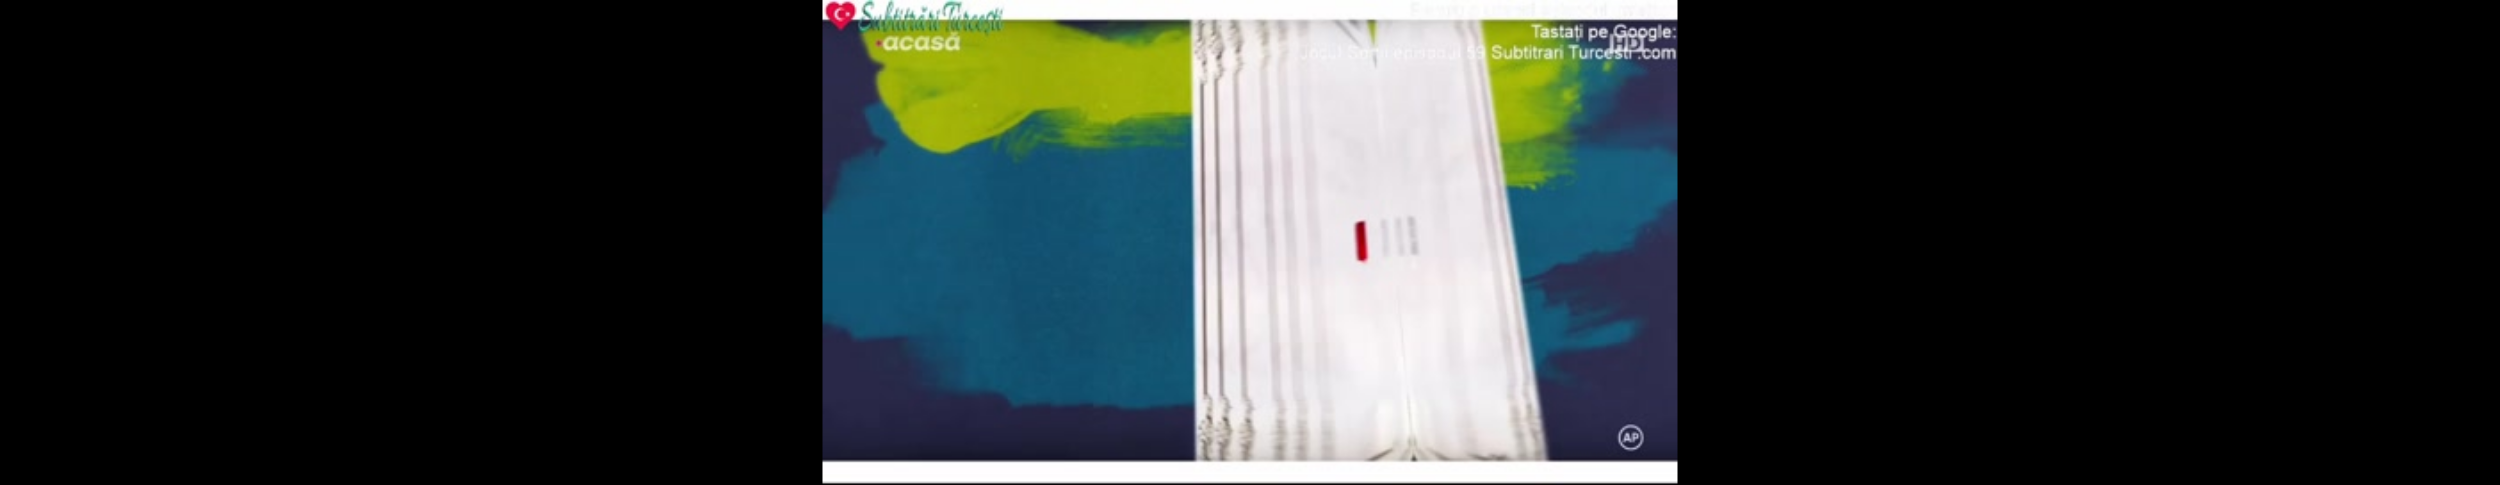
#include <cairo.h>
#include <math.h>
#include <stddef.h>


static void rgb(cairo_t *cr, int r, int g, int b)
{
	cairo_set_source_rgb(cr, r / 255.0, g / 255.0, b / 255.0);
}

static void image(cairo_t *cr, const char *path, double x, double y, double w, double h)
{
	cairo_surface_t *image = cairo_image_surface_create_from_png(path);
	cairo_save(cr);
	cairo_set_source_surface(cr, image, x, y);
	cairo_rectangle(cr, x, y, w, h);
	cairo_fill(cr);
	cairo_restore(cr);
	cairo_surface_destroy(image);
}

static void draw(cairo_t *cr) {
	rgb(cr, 0, 0, 0);
	cairo_paint(cr);
	image(cr, "image0.png", 822, 0, 856, 485);
}

int main(void) {
	cairo_surface_t *surface = cairo_image_surface_create(CAIRO_FORMAT_RGB24, 2500, 485);
	cairo_t *cr = cairo_create(surface);
	cairo_font_options_t *options = cairo_font_options_create();
	cairo_font_options_set_hint_metrics(options, CAIRO_HINT_METRICS_OFF);
	cairo_font_options_set_hint_style(options, CAIRO_HINT_STYLE_NONE);
	cairo_set_font_options(cr, options);
	cairo_set_miter_limit(cr, 4);
	draw(cr);
	cairo_surface_write_to_png(surface, "render.png");
	cairo_font_options_destroy(options);
	cairo_destroy(cr);
	cairo_surface_destroy(surface);
	return 0;
}
